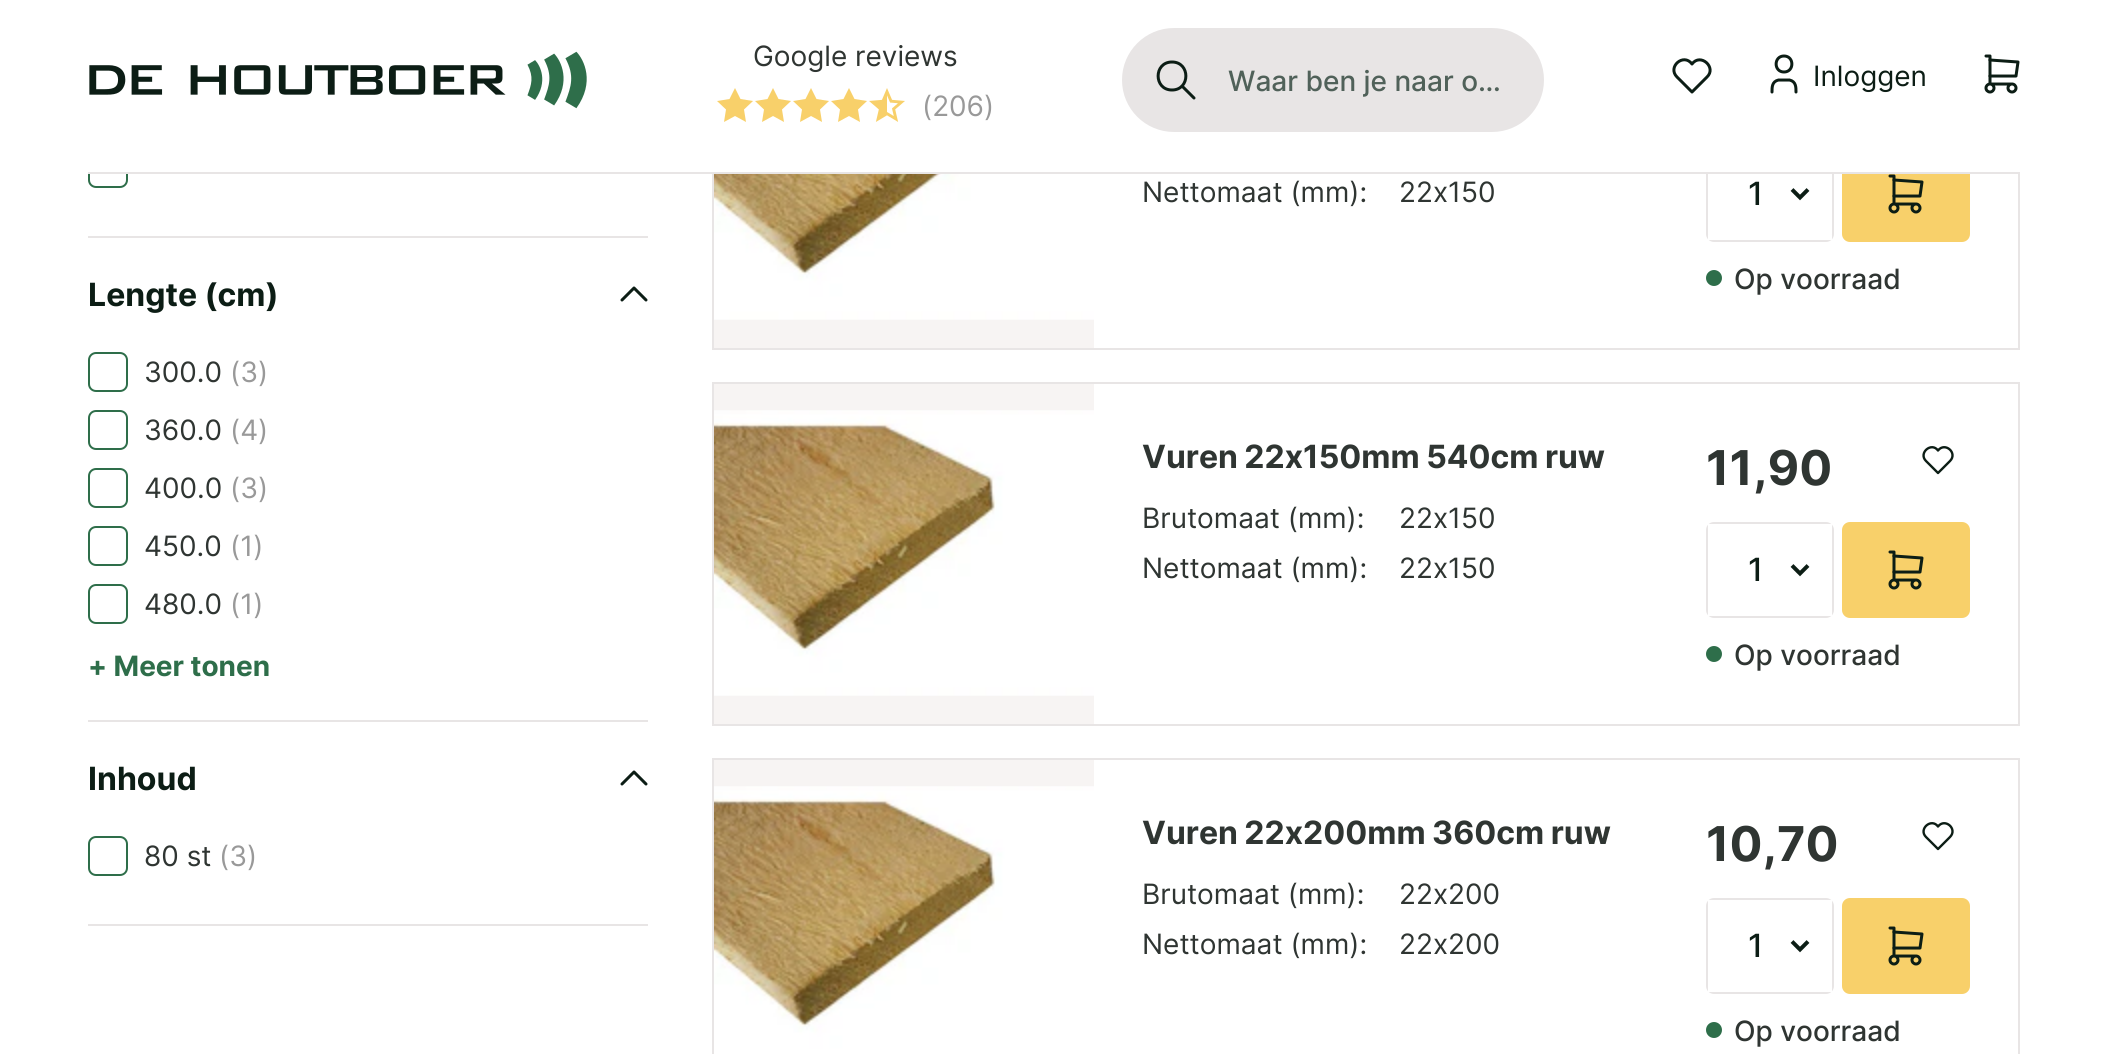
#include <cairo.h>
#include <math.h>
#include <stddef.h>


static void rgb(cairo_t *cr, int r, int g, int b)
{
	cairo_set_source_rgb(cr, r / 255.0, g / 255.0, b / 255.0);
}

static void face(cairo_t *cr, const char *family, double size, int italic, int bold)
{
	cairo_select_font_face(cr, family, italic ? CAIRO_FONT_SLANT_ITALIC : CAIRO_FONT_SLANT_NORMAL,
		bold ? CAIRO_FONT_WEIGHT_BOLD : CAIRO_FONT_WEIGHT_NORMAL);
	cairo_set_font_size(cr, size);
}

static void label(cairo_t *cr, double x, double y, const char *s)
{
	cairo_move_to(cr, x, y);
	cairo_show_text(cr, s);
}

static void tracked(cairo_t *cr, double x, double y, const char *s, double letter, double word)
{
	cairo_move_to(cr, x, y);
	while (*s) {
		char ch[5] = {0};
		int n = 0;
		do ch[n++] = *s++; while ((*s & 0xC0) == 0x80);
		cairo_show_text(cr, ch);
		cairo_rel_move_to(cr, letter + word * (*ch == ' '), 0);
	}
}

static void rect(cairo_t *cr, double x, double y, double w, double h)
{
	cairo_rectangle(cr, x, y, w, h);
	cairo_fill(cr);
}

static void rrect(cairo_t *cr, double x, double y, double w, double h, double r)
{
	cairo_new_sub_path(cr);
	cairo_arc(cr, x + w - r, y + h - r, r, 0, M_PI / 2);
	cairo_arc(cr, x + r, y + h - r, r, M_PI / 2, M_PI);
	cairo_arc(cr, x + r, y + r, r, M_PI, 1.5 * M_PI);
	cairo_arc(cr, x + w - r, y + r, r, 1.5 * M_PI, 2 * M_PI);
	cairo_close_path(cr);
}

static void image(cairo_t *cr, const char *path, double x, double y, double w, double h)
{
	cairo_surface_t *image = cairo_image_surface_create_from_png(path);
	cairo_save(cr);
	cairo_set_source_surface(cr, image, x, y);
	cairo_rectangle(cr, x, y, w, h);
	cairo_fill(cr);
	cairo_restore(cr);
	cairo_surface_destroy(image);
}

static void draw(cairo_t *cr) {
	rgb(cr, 255, 255, 255);
	cairo_paint(cr);
	rrect(cr, 89, 149, 38, 38, 7);
	rgb(cr, 46, 110, 74);
	cairo_stroke(cr);
	cairo_rectangle(cr, 713, 7, 1306, 342);
	rgb(cr, 232, 229, 229);
	cairo_stroke(cr);
	rrect(cr, 1707, 147, 126, 94, 7);
	cairo_stroke(cr);
	rgb(cr, 248, 208, 106);
	rrect(cr, 1842, 146, 128, 96, 8);
	cairo_fill(cr);
	rgb(cr, 255, 255, 255);
	rect(cr, 88, 6, 1932, 168);
	rgb(cr, 232, 229, 229);
	rect(cr, 88, 172, 1932, 2);
	image(cr, "image0.png", 89, 51, 498, 58);
	face(cr, "Inter", 28, 0, 0);
	rgb(cr, 47, 53, 50);
	label(cr, 753, 66, "Google reviews");
	rgb(cr, 248, 208, 106);
	cairo_new_path(cr);
	cairo_move_to(cr, 735, 116);
	cairo_line_to(cr, 724, 122);
	cairo_line_to(cr, 726, 109.5);
	cairo_line_to(cr, 717, 101);
	cairo_line_to(cr, 729.5, 99);
	cairo_line_to(cr, 735, 88);
	cairo_line_to(cr, 740.5, 99);
	cairo_line_to(cr, 753, 101);
	cairo_line_to(cr, 744, 109.5);
	cairo_line_to(cr, 746, 122);
	cairo_close_path(cr);
	cairo_fill(cr);
	cairo_new_path(cr);
	cairo_move_to(cr, 773, 116);
	cairo_line_to(cr, 762, 122);
	cairo_line_to(cr, 764, 109.5);
	cairo_line_to(cr, 755, 101);
	cairo_line_to(cr, 767.5, 99);
	cairo_line_to(cr, 773, 88);
	cairo_line_to(cr, 778.5, 99);
	cairo_line_to(cr, 791, 101);
	cairo_line_to(cr, 782, 109.5);
	cairo_line_to(cr, 784, 122);
	cairo_close_path(cr);
	cairo_fill(cr);
	cairo_new_path(cr);
	cairo_move_to(cr, 811, 116);
	cairo_line_to(cr, 800, 122);
	cairo_line_to(cr, 802, 109.5);
	cairo_line_to(cr, 793, 101);
	cairo_line_to(cr, 805.5, 99);
	cairo_line_to(cr, 811, 88);
	cairo_line_to(cr, 816.5, 99);
	cairo_line_to(cr, 829, 101);
	cairo_line_to(cr, 820, 109.5);
	cairo_line_to(cr, 822, 122);
	cairo_close_path(cr);
	cairo_fill(cr);
	cairo_new_path(cr);
	cairo_move_to(cr, 849, 116);
	cairo_line_to(cr, 838, 122);
	cairo_line_to(cr, 840, 109.5);
	cairo_line_to(cr, 831, 101);
	cairo_line_to(cr, 843.5, 99);
	cairo_line_to(cr, 849, 88);
	cairo_line_to(cr, 854.5, 99);
	cairo_line_to(cr, 867, 101);
	cairo_line_to(cr, 858, 109.5);
	cairo_line_to(cr, 860, 122);
	cairo_close_path(cr);
	cairo_fill(cr);
	image(cr, "image1.png", 869, 88, 36, 34);
	rgb(cr, 153, 153, 153);
	label(cr, 922, 116, "(206)");
	rgb(cr, 232, 229, 229);
	rrect(cr, 1123, 29, 420, 102, 51);
	cairo_fill_preserve(cr);
	cairo_stroke(cr);
	cairo_new_path(cr);
	cairo_move_to(cr, 1172, 90);
	cairo_curve_to(cr, 1190.5, 90, 1190.5, 62, 1172, 62);
	cairo_curve_to(cr, 1153.5, 62, 1153.5, 90, 1172, 90);
	cairo_close_path(cr);
	cairo_move_to(cr, 1194, 98);
	cairo_line_to(cr, 1182, 86);
	rgb(cr, 12, 29, 21);
	cairo_set_line_width(cr, 3);
	cairo_set_line_cap(cr, CAIRO_LINE_CAP_ROUND);
	cairo_set_line_join(cr, CAIRO_LINE_JOIN_ROUND);
	cairo_stroke(cr);
	face(cr, "Inter Medium", 28, 0, 0);
	rgb(cr, 80, 97, 89);
	label(cr, 1228, 91, "Waar ben je naar o…");
	cairo_new_path(cr);
	cairo_move_to(cr, 1707, 77);
	cairo_line_to(cr, 1692, 92);
	cairo_line_to(cr, 1677, 77);
	cairo_move_to(cr, 1677, 77);
	cairo_curve_to(cr, 1667, 67, 1683.5, 52.5, 1692, 64);
	cairo_curve_to(cr, 1700.5, 52.5, 1717, 67.5, 1707, 77);
	rgb(cr, 12, 29, 21);
	cairo_stroke(cr);
	cairo_new_path(cr);
	cairo_move_to(cr, 1784, 72);
	cairo_curve_to(cr, 1794.5, 72, 1794.5, 56, 1784, 56);
	cairo_curve_to(cr, 1773.5, 56, 1773.5, 72, 1784, 72);
	cairo_close_path(cr);
	cairo_move_to(cr, 1772, 92);
	cairo_curve_to(cr, 1772, 87, 1772, 81.5, 1778.5, 80);
	cairo_line_to(cr, 1789.5, 80);
	cairo_curve_to(cr, 1796, 81.5, 1796, 87, 1796, 92);
	cairo_stroke(cr);
	face(cr, "Inter", 28, 0, 0);
	label(cr, 1813, 86, "Inloggen");
	image(cr, "image2.png", 1984, 54, 36, 40);
	rgb(cr, 232, 229, 229);
	rect(cr, 88, 236, 560, 2);
	rect(cr, 88, 720, 560, 2);
	face(cr, "Inter", 32, 0, 1);
	rgb(cr, 12, 29, 21);
	label(cr, 88, 306, "Lengte (cm)");
	cairo_new_path(cr);
	cairo_move_to(cr, 622, 300);
	cairo_line_to(cr, 634, 288);
	cairo_line_to(cr, 646, 300);
	cairo_stroke(cr);
	rrect(cr, 89, 353, 38, 38, 7);
	rgb(cr, 46, 110, 74);
	cairo_set_line_width(cr, 2);
	cairo_set_line_cap(cr, CAIRO_LINE_CAP_BUTT);
	cairo_set_line_join(cr, CAIRO_LINE_JOIN_MITER);
	cairo_stroke(cr);
	face(cr, "Inter", 28, 0, 0);
	rgb(cr, 47, 53, 50);
	label(cr, 144, 382, "300.0");
	rgb(cr, 153, 153, 153);
	label(cr, 230, 382, "(3)");
	rrect(cr, 89, 411, 38, 38, 7);
	rgb(cr, 46, 110, 74);
	cairo_stroke(cr);
	rgb(cr, 47, 53, 50);
	label(cr, 144, 440, "360.0");
	rgb(cr, 153, 153, 153);
	label(cr, 230, 440, "(4)");
	rrect(cr, 89, 469, 38, 38, 7);
	rgb(cr, 46, 110, 74);
	cairo_stroke(cr);
	rgb(cr, 47, 53, 50);
	label(cr, 144, 498, "400.0");
	rgb(cr, 153, 153, 153);
	label(cr, 230, 498, "(3)");
	rrect(cr, 89, 527, 38, 38, 7);
	rgb(cr, 46, 110, 74);
	cairo_stroke(cr);
	rgb(cr, 47, 53, 50);
	label(cr, 144, 556, "450.0");
	rgb(cr, 153, 153, 153);
	label(cr, 230, 556, "(1)");
	rrect(cr, 89, 585, 38, 38, 7);
	rgb(cr, 46, 110, 74);
	cairo_stroke(cr);
	rgb(cr, 47, 53, 50);
	label(cr, 144, 614, "480.0");
	rgb(cr, 153, 153, 153);
	label(cr, 230, 614, "(1)");
	face(cr, "Inter", 28, 0, 1);
	rgb(cr, 46, 110, 74);
	label(cr, 88, 676, "+ Meer tonen");
	rgb(cr, 232, 229, 229);
	rect(cr, 88, 924, 560, 2);
	face(cr, "Inter", 32, 0, 1);
	rgb(cr, 12, 29, 21);
	label(cr, 88, 790, "Inhoud");
	cairo_new_path(cr);
	cairo_move_to(cr, 622, 784);
	cairo_line_to(cr, 634, 772);
	cairo_line_to(cr, 646, 784);
	cairo_set_line_width(cr, 3);
	cairo_set_line_cap(cr, CAIRO_LINE_CAP_ROUND);
	cairo_set_line_join(cr, CAIRO_LINE_JOIN_ROUND);
	cairo_stroke(cr);
	rrect(cr, 89, 837, 38, 38, 7);
	rgb(cr, 46, 110, 74);
	cairo_set_line_width(cr, 2);
	cairo_set_line_cap(cr, CAIRO_LINE_CAP_BUTT);
	cairo_set_line_join(cr, CAIRO_LINE_JOIN_MITER);
	cairo_stroke(cr);
	face(cr, "Inter", 28, 0, 0);
	rgb(cr, 47, 53, 50);
	label(cr, 144, 866, "80 st");
	rgb(cr, 153, 153, 153);
	label(cr, 219, 866, "(3)");
	rgb(cr, 247, 244, 243);
	rect(cr, 714, 320, 380, 28);
	image(cr, "image3.png", 714, 174, 380, 146);
	rgb(cr, 47, 53, 50);
	label(cr, 1142, 202, "Nettomaat (mm):");
	label(cr, 1399, 202, "22x150");
	rgb(cr, 255, 255, 255);
	rect(cr, 1708, 235, 124, 5);
	cairo_new_path(cr);
	cairo_move_to(cr, 1792, 189.5);
	cairo_line_to(cr, 1800, 197.5);
	cairo_line_to(cr, 1808, 189.5);
	rgb(cr, 12, 29, 21);
	cairo_set_line_width(cr, 4);
	cairo_stroke(cr);
	face(cr, "Inter Medium", 32, 0, 0);
	label(cr, 1748, 205, "1");
	image(cr, "image4.png", 1888, 174, 36, 40);
	rgb(cr, 46, 110, 74);
	cairo_arc(cr, 1714, 278, 8, 0, 2 * M_PI);
	cairo_fill(cr);
	face(cr, "Inter Medium", 28, 0, 0);
	rgb(cr, 47, 53, 50);
	label(cr, 1734, 289, "Op voorraad");
	cairo_rectangle(cr, 713, 383, 1306, 342);
	rgb(cr, 232, 229, 229);
	cairo_set_line_width(cr, 2);
	cairo_stroke(cr);
	rgb(cr, 247, 244, 243);
	rect(cr, 714, 384, 380, 340);
	image(cr, "image5.png", 714, 410, 380, 286);
	face(cr, "Inter", 32, 0, 1);
	rgb(cr, 47, 53, 50);
	tracked(cr, 1142, 468, "Vuren 22x150mm 540cm ruw", 0, -1);
	cairo_new_path(cr);
	cairo_move_to(cr, 1950, 461);
	cairo_line_to(cr, 1938, 473);
	cairo_line_to(cr, 1926, 461);
	cairo_move_to(cr, 1926, 461);
	cairo_curve_to(cr, 1918, 453, 1931.5, 441.5, 1938, 450.5);
	cairo_curve_to(cr, 1945, 441.5, 1958, 453, 1950, 461);
	rgb(cr, 12, 29, 21);
	cairo_set_line_width(cr, 2.4);
	cairo_set_line_cap(cr, CAIRO_LINE_CAP_ROUND);
	cairo_set_line_join(cr, CAIRO_LINE_JOIN_ROUND);
	cairo_stroke(cr);
	face(cr, "Inter", 28, 0, 0);
	rgb(cr, 47, 53, 50);
	label(cr, 1142, 528, "Brutomaat (mm):");
	label(cr, 1399, 528, "22x150");
	label(cr, 1142, 578, "Nettomaat (mm):");
	label(cr, 1399, 578, "22x150");
	face(cr, "Inter", 48, 0, 1);
	label(cr, 1706, 485, "11,90");
	rrect(cr, 1707, 523, 126, 94, 7);
	rgb(cr, 232, 229, 229);
	cairo_set_line_width(cr, 2);
	cairo_set_line_cap(cr, CAIRO_LINE_CAP_BUTT);
	cairo_set_line_join(cr, CAIRO_LINE_JOIN_MITER);
	cairo_stroke(cr);
	rgb(cr, 255, 255, 255);
	rect(cr, 1708, 524, 124, 92);
	cairo_new_path(cr);
	cairo_move_to(cr, 1792, 565.5);
	cairo_line_to(cr, 1800, 573.5);
	cairo_line_to(cr, 1808, 565.5);
	rgb(cr, 12, 29, 21);
	cairo_set_line_width(cr, 4);
	cairo_stroke(cr);
	face(cr, "Inter Medium", 32, 0, 0);
	label(cr, 1748, 581, "1");
	rgb(cr, 248, 208, 106);
	rrect(cr, 1842, 522, 128, 96, 8);
	cairo_fill(cr);
	image(cr, "image4.png", 1888, 550, 36, 40);
	rgb(cr, 46, 110, 74);
	cairo_arc(cr, 1714, 654, 8, 0, 2 * M_PI);
	cairo_fill(cr);
	face(cr, "Inter Medium", 28, 0, 0);
	rgb(cr, 47, 53, 50);
	label(cr, 1734, 665, "Op voorraad");
	cairo_rectangle(cr, 713, 759, 1306, 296);
	rgb(cr, 232, 229, 229);
	cairo_set_line_width(cr, 2);
	cairo_stroke(cr);
	rgb(cr, 247, 244, 243);
	rect(cr, 714, 760, 380, 26);
	image(cr, "image6.png", 714, 786, 380, 268);
	face(cr, "Inter", 32, 0, 1);
	rgb(cr, 47, 53, 50);
	tracked(cr, 1142, 844, "Vuren 22x200mm 360cm ruw", 0, -1);
	cairo_new_path(cr);
	cairo_move_to(cr, 1950, 837);
	cairo_line_to(cr, 1938, 849);
	cairo_line_to(cr, 1926, 837);
	cairo_move_to(cr, 1926, 837);
	cairo_curve_to(cr, 1918, 829, 1931.5, 817.5, 1938, 826.5);
	cairo_curve_to(cr, 1945, 817.5, 1958, 829, 1950, 837);
	rgb(cr, 12, 29, 21);
	cairo_set_line_width(cr, 2.4);
	cairo_set_line_cap(cr, CAIRO_LINE_CAP_ROUND);
	cairo_set_line_join(cr, CAIRO_LINE_JOIN_ROUND);
	cairo_stroke(cr);
	face(cr, "Inter", 28, 0, 0);
	rgb(cr, 47, 53, 50);
	label(cr, 1142, 904, "Brutomaat (mm):");
	label(cr, 1399, 904, "22x200");
	label(cr, 1142, 954, "Nettomaat (mm):");
	label(cr, 1399, 954, "22x200");
	face(cr, "Inter", 48, 0, 1);
	label(cr, 1706, 861, "10,70");
	rrect(cr, 1707, 899, 126, 94, 7);
	rgb(cr, 232, 229, 229);
	cairo_set_line_width(cr, 2);
	cairo_set_line_cap(cr, CAIRO_LINE_CAP_BUTT);
	cairo_set_line_join(cr, CAIRO_LINE_JOIN_MITER);
	cairo_stroke(cr);
	rgb(cr, 255, 255, 255);
	rect(cr, 1708, 900, 124, 92);
	cairo_new_path(cr);
	cairo_move_to(cr, 1792, 941.5);
	cairo_line_to(cr, 1800, 949.5);
	cairo_line_to(cr, 1808, 941.5);
	rgb(cr, 12, 29, 21);
	cairo_set_line_width(cr, 4);
	cairo_stroke(cr);
	face(cr, "Inter Medium", 32, 0, 0);
	label(cr, 1748, 957, "1");
	rgb(cr, 248, 208, 106);
	rrect(cr, 1842, 898, 128, 96, 8);
	cairo_fill(cr);
	image(cr, "image4.png", 1888, 926, 36, 40);
	rgb(cr, 46, 110, 74);
	cairo_arc(cr, 1714, 1030, 8, 0, 2 * M_PI);
	cairo_fill(cr);
	face(cr, "Inter Medium", 28, 0, 0);
	rgb(cr, 47, 53, 50);
	label(cr, 1734, 1041, "Op voorraad");
}

int main(void) {
	cairo_surface_t *surface = cairo_image_surface_create(CAIRO_FORMAT_RGB24, 2108, 1054);
	cairo_t *cr = cairo_create(surface);
	cairo_font_options_t *options = cairo_font_options_create();
	cairo_font_options_set_hint_metrics(options, CAIRO_HINT_METRICS_OFF);
	cairo_font_options_set_hint_style(options, CAIRO_HINT_STYLE_NONE);
	cairo_set_font_options(cr, options);
	cairo_set_miter_limit(cr, 4);
	draw(cr);
	cairo_surface_write_to_png(surface, "render.png");
	cairo_font_options_destroy(options);
	cairo_destroy(cr);
	cairo_surface_destroy(surface);
	return 0;
}
